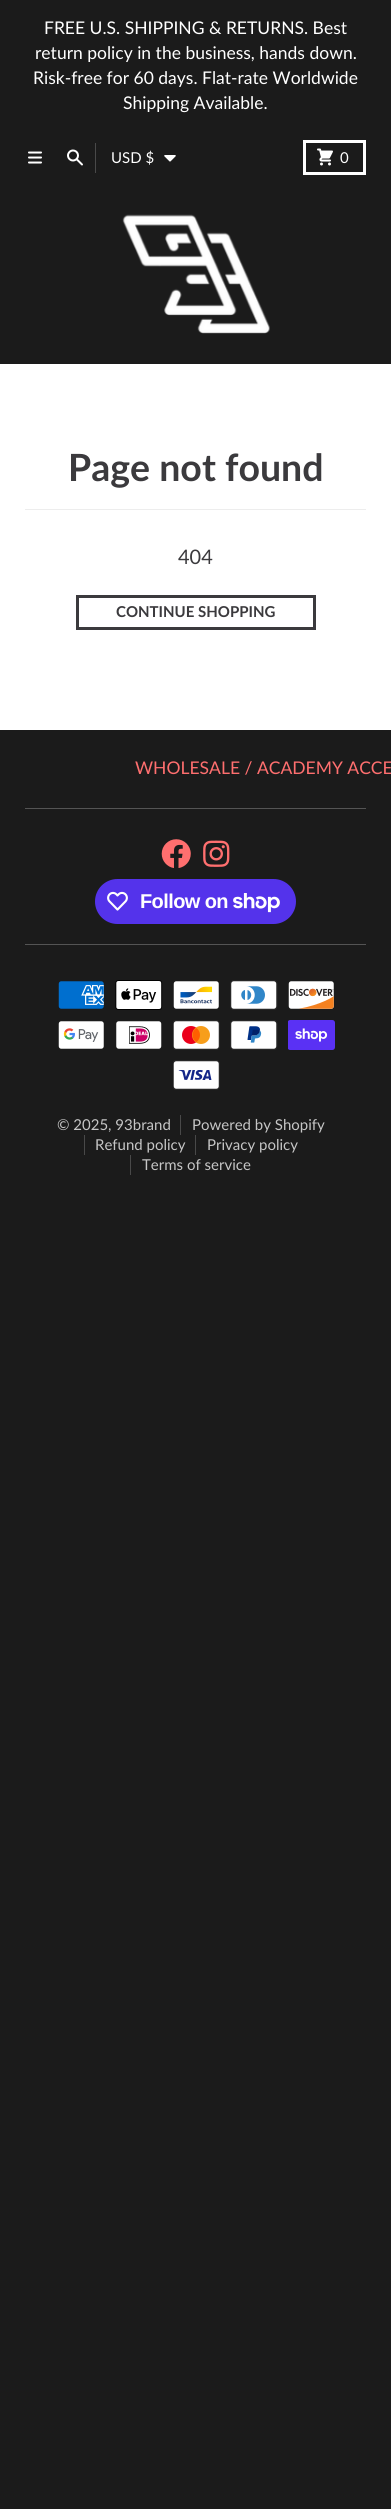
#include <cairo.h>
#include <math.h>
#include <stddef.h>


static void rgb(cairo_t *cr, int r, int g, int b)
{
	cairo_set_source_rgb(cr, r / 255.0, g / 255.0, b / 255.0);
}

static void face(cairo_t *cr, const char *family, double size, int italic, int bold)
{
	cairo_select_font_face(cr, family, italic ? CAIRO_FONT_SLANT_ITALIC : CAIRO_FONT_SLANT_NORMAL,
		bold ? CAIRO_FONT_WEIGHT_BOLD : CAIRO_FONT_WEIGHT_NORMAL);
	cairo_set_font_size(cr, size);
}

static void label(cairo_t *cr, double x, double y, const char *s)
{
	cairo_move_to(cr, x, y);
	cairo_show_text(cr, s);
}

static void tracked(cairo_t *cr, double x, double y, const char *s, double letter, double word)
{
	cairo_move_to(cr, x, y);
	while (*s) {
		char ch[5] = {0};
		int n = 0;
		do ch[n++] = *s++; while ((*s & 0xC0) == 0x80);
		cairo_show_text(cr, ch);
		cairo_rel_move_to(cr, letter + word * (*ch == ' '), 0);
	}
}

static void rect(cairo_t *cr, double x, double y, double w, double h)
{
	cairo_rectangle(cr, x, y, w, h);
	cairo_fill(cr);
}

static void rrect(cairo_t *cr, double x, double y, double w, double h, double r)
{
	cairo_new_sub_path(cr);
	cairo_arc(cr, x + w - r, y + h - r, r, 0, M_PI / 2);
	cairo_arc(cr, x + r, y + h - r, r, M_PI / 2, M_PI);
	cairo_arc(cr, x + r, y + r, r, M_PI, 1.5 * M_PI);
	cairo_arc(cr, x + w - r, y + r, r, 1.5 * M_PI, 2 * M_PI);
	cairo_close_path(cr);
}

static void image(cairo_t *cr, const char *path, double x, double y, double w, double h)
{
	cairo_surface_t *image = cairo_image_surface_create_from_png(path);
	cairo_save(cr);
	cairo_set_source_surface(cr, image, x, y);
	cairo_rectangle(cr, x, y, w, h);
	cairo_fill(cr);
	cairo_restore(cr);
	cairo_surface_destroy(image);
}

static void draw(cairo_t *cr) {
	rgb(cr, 27, 27, 27);
	cairo_paint(cr);
	face(cr, "Lato", 17.5, 0, 0);
	rgb(cr, 255, 255, 255);
	label(cr, 44, 34, "FREE U.S. SHIPPING & RETURNS. Best");
	label(cr, 35, 59, "return policy in the business, hands down.");
	label(cr, 33, 84, "Risk-free for 60 days. Flat-rate Worldwide");
	label(cr, 123, 109, "Shipping Available.");
	image(cr, "image0.png", 28, 151, 14, 13);
	image(cr, "image1.png", 67, 149, 16, 17);
	rgb(cr, 73, 73, 73);
	rect(cr, 95, 143, 1, 30);
	face(cr, "Lato", 15, 0, 0);
	rgb(cr, 255, 255, 255);
	label(cr, 111, 163, "USD $");
	image(cr, "image2.png", 164, 155, 12, 7);
	cairo_rectangle(cr, 304.5, 141.5, 60, 32);
	cairo_set_line_width(cr, 3);
	cairo_stroke(cr);
	image(cr, "image3.png", 317, 148, 16, 18);
	label(cr, 340, 163, "0");
	image(cr, "image4.png", 122, 214, 148, 120);
	rect(cr, 0, 364, 391, 366);
	rgb(cr, 237, 237, 237);
	rect(cr, 25, 509, 341, 1);
	face(cr, "Lato", 37.5, 0, 1);
	rgb(cr, 59, 58, 61);
	label(cr, 68, 481, "Page not found");
	face(cr, "Lato", 20, 0, 0);
	label(cr, 178, 564, "404");
	cairo_rectangle(cr, 77.5, 596.5, 237, 32);
	cairo_stroke(cr);
	face(cr, "Lato", 15, 0, 1);
	label(cr, 116, 617, "CONTINUE SHOPPING");
	face(cr, "Lato", 17.5, 0, 0);
	rgb(cr, 255, 111, 111);
	label(cr, 135, 774, "WHOLESALE / ACADEMY ACCE");
	rgb(cr, 84, 84, 84);
	rect(cr, 25, 808, 341, 1);
	image(cr, "image5.png", 161, 839, 30, 29);
	image(cr, "image6.png", 203, 840, 27, 27);
	rgb(cr, 84, 51, 235);
	rrect(cr, 95, 879, 201, 45, 22.5);
	cairo_fill(cr);
	image(cr, "image7.png", 107, 891, 21, 20);
	face(cr, "Liberation Sans", 20, 0, 1);
	rgb(cr, 255, 255, 255);
	tracked(cr, 140, 908, "Follow on", -0.6, 0);
	image(cr, "image8.png", 233, 893, 47, 20);
	rgb(cr, 84, 84, 84);
	rect(cr, 25, 944, 341, 1);
	image(cr, "image9.png", 58, 981, 46, 28);
	image(cr, "image10.png", 115, 980, 48, 30);
	image(cr, "image11.png", 173, 981, 46, 28);
	image(cr, "image12.png", 230, 980, 48, 30);
	image(cr, "image13.png", 288, 981, 46, 28);
	image(cr, "image14.png", 58, 1021, 46, 28);
	image(cr, "image15.png", 116, 1021, 46, 28);
	image(cr, "image16.png", 173, 1020, 47, 30);
	image(cr, "image17.png", 230, 1020, 48, 30);
	image(cr, "image18.png", 288, 1020, 47, 30);
	image(cr, "image19.png", 173, 1060, 47, 30);
	face(cr, "Lato", 15, 0, 0);
	rgb(cr, 198, 198, 198);
	label(cr, 57, 1130, "© 2025, 93brand");
	rgb(cr, 73, 73, 73);
	rect(cr, 180, 1115, 1, 20);
	rgb(cr, 198, 198, 198);
	label(cr, 192, 1130, "Powered by Shopify");
	rgb(cr, 73, 73, 73);
	rect(cr, 84, 1135, 1, 20);
	rgb(cr, 198, 198, 198);
	label(cr, 95, 1150, "Refund policy");
	rgb(cr, 73, 73, 73);
	rect(cr, 195, 1135, 1, 20);
	rgb(cr, 198, 198, 198);
	label(cr, 207, 1150, "Privacy policy");
	rgb(cr, 73, 73, 73);
	rect(cr, 130, 1155, 1, 20);
	rgb(cr, 198, 198, 198);
	label(cr, 142, 1170, "Terms of service");
}

int main(void) {
	cairo_surface_t *surface = cairo_image_surface_create(CAIRO_FORMAT_RGB24, 391, 2509);
	cairo_t *cr = cairo_create(surface);
	cairo_font_options_t *options = cairo_font_options_create();
	cairo_font_options_set_hint_metrics(options, CAIRO_HINT_METRICS_OFF);
	cairo_font_options_set_hint_style(options, CAIRO_HINT_STYLE_NONE);
	cairo_set_font_options(cr, options);
	cairo_set_miter_limit(cr, 4);
	draw(cr);
	cairo_surface_write_to_png(surface, "render.png");
	cairo_font_options_destroy(options);
	cairo_destroy(cr);
	cairo_surface_destroy(surface);
	return 0;
}
